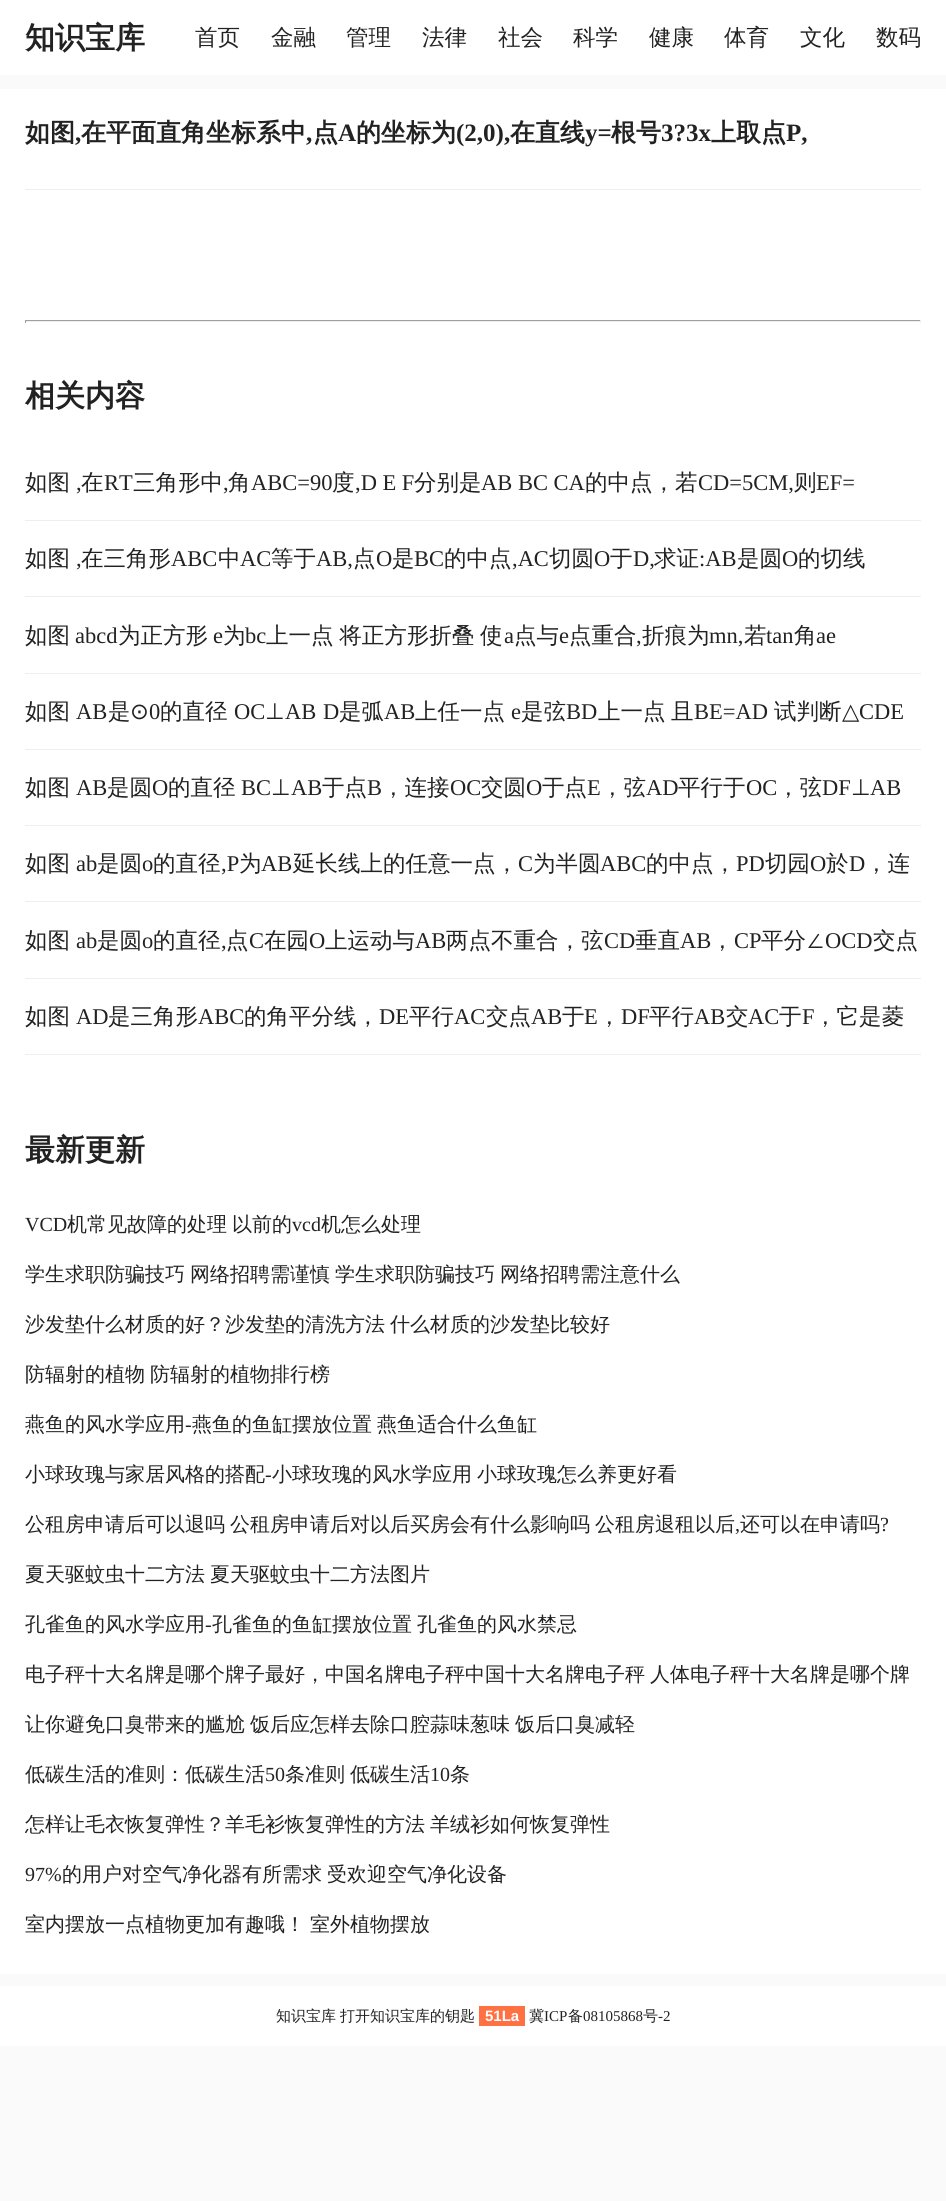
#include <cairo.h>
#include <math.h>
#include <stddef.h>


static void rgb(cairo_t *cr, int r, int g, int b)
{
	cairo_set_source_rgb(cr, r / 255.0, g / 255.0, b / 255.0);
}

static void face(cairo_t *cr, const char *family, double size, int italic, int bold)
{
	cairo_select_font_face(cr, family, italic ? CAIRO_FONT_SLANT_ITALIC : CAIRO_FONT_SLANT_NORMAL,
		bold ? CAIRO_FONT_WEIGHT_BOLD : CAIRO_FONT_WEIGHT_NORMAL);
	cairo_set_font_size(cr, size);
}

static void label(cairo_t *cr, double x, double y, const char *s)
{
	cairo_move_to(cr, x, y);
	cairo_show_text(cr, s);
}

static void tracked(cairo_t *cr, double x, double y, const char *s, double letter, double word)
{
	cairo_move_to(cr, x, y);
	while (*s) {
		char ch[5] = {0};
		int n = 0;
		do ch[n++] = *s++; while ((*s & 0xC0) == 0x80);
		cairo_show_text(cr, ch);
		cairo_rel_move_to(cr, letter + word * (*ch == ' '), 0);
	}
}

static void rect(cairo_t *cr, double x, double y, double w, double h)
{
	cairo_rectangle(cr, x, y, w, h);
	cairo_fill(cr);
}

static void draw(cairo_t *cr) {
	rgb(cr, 250, 250, 250);
	cairo_paint(cr);
	rgb(cr, 255, 255, 255);
	rect(cr, 0, 0, 946, 75);
	face(cr, "WenQuanYi Zen Hei", 30, 0, 1);
	rgb(cr, 34, 34, 34);
	label(cr, 25, 48, "知识宝库");
	face(cr, "WenQuanYi Zen Hei Medium", 22.5, 0, 0);
	label(cr, 195, 45, "首页");
	label(cr, 271, 45, "金融");
	label(cr, 346, 45, "管理");
	label(cr, 422, 45, "法律");
	label(cr, 498, 45, "社会");
	label(cr, 573, 45, "科学");
	label(cr, 649, 45, "健康");
	label(cr, 724, 45, "体育");
	label(cr, 800, 45, "文化");
	label(cr, 876, 45, "数码");
	rgb(cr, 255, 255, 255);
	rect(cr, 0, 89, 946, 1885);
	rgb(cr, 238, 238, 238);
	rect(cr, 25, 189, 896, 1);
	face(cr, "WenQuanYi Zen Hei", 25, 0, 1);
	rgb(cr, 34, 34, 34);
	label(cr, 25, 141, "如图");
	face(cr, "Liberation Serif", 25, 0, 1);
	label(cr, 75, 141, ",");
	face(cr, "WenQuanYi Zen Hei", 25, 0, 1);
	label(cr, 81, 141, "在平面直角坐标系中");
	face(cr, "Liberation Serif", 25, 0, 1);
	label(cr, 306, 141, ",");
	face(cr, "WenQuanYi Zen Hei", 25, 0, 1);
	label(cr, 313, 141, "点");
	face(cr, "Liberation Serif", 25, 0, 1);
	label(cr, 338, 141, "A");
	face(cr, "WenQuanYi Zen Hei", 25, 0, 1);
	label(cr, 356, 141, "的坐标为");
	face(cr, "Liberation Serif", 25, 0, 1);
	label(cr, 456, 141, "(2,0),");
	face(cr, "WenQuanYi Zen Hei", 25, 0, 1);
	label(cr, 510, 141, "在直线");
	face(cr, "Liberation Serif", 25, 0, 1);
	label(cr, 585, 141, "y=");
	face(cr, "WenQuanYi Zen Hei", 25, 0, 1);
	label(cr, 611, 141, "根号");
	face(cr, "Liberation Serif", 25, 0, 1);
	label(cr, 661, 141, "3?3x");
	face(cr, "WenQuanYi Zen Hei", 25, 0, 1);
	label(cr, 711, 141, "上取点");
	face(cr, "Liberation Serif", 25, 0, 1);
	label(cr, 786, 141, "P,");
	rgb(cr, 159, 159, 159);
	rect(cr, 25, 320, 896, 1);
	rgb(cr, 238, 238, 238);
	rect(cr, 920, 320, 1, 3);
	rect(cr, 25, 321, 896, 1);
	rgb(cr, 159, 159, 159);
	rect(cr, 25, 320, 1, 3);
	face(cr, "WenQuanYi Zen Hei", 30, 0, 1);
	rgb(cr, 34, 34, 34);
	label(cr, 25, 406, "相关内容");
	rgb(cr, 238, 238, 238);
	rect(cr, 25, 520, 896, 1);
	face(cr, "WenQuanYi Zen Hei Medium", 22.5, 0, 0);
	rgb(cr, 34, 34, 34);
	label(cr, 25, 490, "如图");
	face(cr, "Liberation Serif", 22.5, 0, 0);
	label(cr, 76, 490, ",");
	face(cr, "WenQuanYi Zen Hei Medium", 22.5, 0, 0);
	label(cr, 81, 490, "在");
	face(cr, "Liberation Serif", 22.5, 0, 0);
	label(cr, 104, 490, "RT");
	face(cr, "WenQuanYi Zen Hei Medium", 22.5, 0, 0);
	label(cr, 133, 490, "三角形中");
	face(cr, "Liberation Serif", 22.5, 0, 0);
	label(cr, 223, 490, ",");
	face(cr, "WenQuanYi Zen Hei Medium", 22.5, 0, 0);
	label(cr, 228, 490, "角");
	face(cr, "Liberation Serif", 22.5, 0, 0);
	label(cr, 251, 490, "ABC=90");
	face(cr, "WenQuanYi Zen Hei Medium", 22.5, 0, 0);
	label(cr, 332, 490, "度");
	face(cr, "Liberation Serif", 22.5, 0, 0);
	label(cr, 355, 490, ",D E F");
	face(cr, "WenQuanYi Zen Hei Medium", 22.5, 0, 0);
	label(cr, 414, 490, "分别是");
	face(cr, "Liberation Serif", 22.5, 0, 0);
	label(cr, 481, 490, "AB BC CA");
	face(cr, "WenQuanYi Zen Hei Medium", 22.5, 0, 0);
	label(cr, 585, 490, "的中点，若");
	face(cr, "Liberation Serif", 22.5, 0, 0);
	label(cr, 698, 490, "CD=5CM,");
	face(cr, "WenQuanYi Zen Hei Medium", 22.5, 0, 0);
	label(cr, 794, 490, "则");
	face(cr, "Liberation Serif", 22.5, 0, 0);
	label(cr, 816, 490, "EF=");
	rgb(cr, 238, 238, 238);
	rect(cr, 25, 596, 896, 1);
	face(cr, "WenQuanYi Zen Hei Medium", 22.5, 0, 0);
	rgb(cr, 34, 34, 34);
	label(cr, 25, 566, "如图");
	face(cr, "Liberation Serif", 22.5, 0, 0);
	label(cr, 76, 566, ",");
	face(cr, "WenQuanYi Zen Hei Medium", 22.5, 0, 0);
	label(cr, 81, 566, "在三角形");
	face(cr, "Liberation Serif", 22.5, 0, 0);
	label(cr, 171, 566, "ABC");
	face(cr, "WenQuanYi Zen Hei Medium", 22.5, 0, 0);
	label(cr, 218, 566, "中");
	face(cr, "Liberation Serif", 22.5, 0, 0);
	label(cr, 240, 566, "AC");
	face(cr, "WenQuanYi Zen Hei Medium", 22.5, 0, 0);
	label(cr, 271, 566, "等于");
	face(cr, "Liberation Serif", 22.5, 0, 0);
	label(cr, 316, 566, "AB,");
	face(cr, "WenQuanYi Zen Hei Medium", 22.5, 0, 0);
	label(cr, 353, 566, "点");
	face(cr, "Liberation Serif", 22.5, 0, 0);
	label(cr, 376, 566, "O");
	face(cr, "WenQuanYi Zen Hei Medium", 22.5, 0, 0);
	label(cr, 392, 566, "是");
	face(cr, "Liberation Serif", 22.5, 0, 0);
	label(cr, 414, 566, "BC");
	face(cr, "WenQuanYi Zen Hei Medium", 22.5, 0, 0);
	label(cr, 444, 566, "的中点");
	face(cr, "Liberation Serif", 22.5, 0, 0);
	label(cr, 512, 566, ",AC");
	face(cr, "WenQuanYi Zen Hei Medium", 22.5, 0, 0);
	label(cr, 549, 566, "切圆");
	face(cr, "Liberation Serif", 22.5, 0, 0);
	label(cr, 594, 566, "O");
	face(cr, "WenQuanYi Zen Hei Medium", 22.5, 0, 0);
	label(cr, 610, 566, "于");
	face(cr, "Liberation Serif", 22.5, 0, 0);
	label(cr, 633, 566, "D,");
	face(cr, "WenQuanYi Zen Hei Medium", 22.5, 0, 0);
	label(cr, 654, 566, "求证");
	face(cr, "Liberation Serif", 22.5, 0, 0);
	label(cr, 699, 566, ":AB");
	face(cr, "WenQuanYi Zen Hei Medium", 22.5, 0, 0);
	label(cr, 737, 566, "是圆");
	face(cr, "Liberation Serif", 22.5, 0, 0);
	label(cr, 782, 566, "O");
	face(cr, "WenQuanYi Zen Hei Medium", 22.5, 0, 0);
	label(cr, 798, 566, "的切线");
	rgb(cr, 238, 238, 238);
	rect(cr, 25, 673, 896, 1);
	rgb(cr, 34, 34, 34);
	label(cr, 25, 643, "如图");
	face(cr, "Liberation Serif", 22.5, 0, 0);
	label(cr, 75, 643, "abcd");
	face(cr, "WenQuanYi Zen Hei Medium", 22.5, 0, 0);
	label(cr, 118, 643, "为正方形");
	face(cr, "Liberation Serif", 22.5, 0, 0);
	label(cr, 213, 643, "e");
	face(cr, "WenQuanYi Zen Hei Medium", 22.5, 0, 0);
	label(cr, 223, 643, "为");
	face(cr, "Liberation Serif", 22.5, 0, 0);
	label(cr, 245, 643, "bc");
	face(cr, "WenQuanYi Zen Hei Medium", 22.5, 0, 0);
	tracked(cr, 266, 643, "上一点 将正方形折叠 使", 0, -1);
	face(cr, "Liberation Serif", 22.5, 0, 0);
	label(cr, 504, 643, "a");
	face(cr, "WenQuanYi Zen Hei Medium", 22.5, 0, 0);
	label(cr, 514, 643, "点与");
	face(cr, "Liberation Serif", 22.5, 0, 0);
	label(cr, 559, 643, "e");
	face(cr, "WenQuanYi Zen Hei Medium", 22.5, 0, 0);
	label(cr, 569, 643, "点重合");
	face(cr, "Liberation Serif", 22.5, 0, 0);
	label(cr, 636, 643, ",");
	face(cr, "WenQuanYi Zen Hei Medium", 22.5, 0, 0);
	label(cr, 642, 643, "折痕为");
	face(cr, "Liberation Serif", 22.5, 0, 0);
	label(cr, 709, 643, "mn,");
	face(cr, "WenQuanYi Zen Hei Medium", 22.5, 0, 0);
	label(cr, 744, 643, "若");
	face(cr, "Liberation Serif", 22.5, 0, 0);
	label(cr, 766, 643, "tan");
	face(cr, "WenQuanYi Zen Hei Medium", 22.5, 0, 0);
	label(cr, 794, 643, "角");
	face(cr, "Liberation Serif", 22.5, 0, 0);
	label(cr, 816, 643, "ae");
	rgb(cr, 238, 238, 238);
	rect(cr, 25, 749, 896, 1);
	face(cr, "WenQuanYi Zen Hei Medium", 22.5, 0, 0);
	rgb(cr, 34, 34, 34);
	label(cr, 25, 719, "如图");
	face(cr, "Liberation Serif", 22.5, 0, 0);
	label(cr, 76, 719, "AB");
	face(cr, "WenQuanYi Zen Hei Medium", 22.5, 0, 0);
	label(cr, 108, 719, "是");
	face(cr, "DejaVu Sans", 22.5, 0, 0);
	label(cr, 130, 719, "⊙");
	face(cr, "Liberation Serif", 22.5, 0, 0);
	label(cr, 149, 719, "0");
	face(cr, "WenQuanYi Zen Hei Medium", 22.5, 0, 0);
	label(cr, 160, 719, "的直径");
	face(cr, "Liberation Serif", 22.5, 0, 0);
	label(cr, 234, 719, "OC");
	face(cr, "DejaVu Sans", 22.5, 0, 0);
	label(cr, 265, 719, "⊥");
	face(cr, "Liberation Serif", 22.5, 0, 0);
	tracked(cr, 285, 719, "AB D", 0, 1);
	face(cr, "WenQuanYi Zen Hei Medium", 22.5, 0, 0);
	label(cr, 339, 719, "是弧");
	face(cr, "Liberation Serif", 22.5, 0, 0);
	label(cr, 384, 719, "AB");
	face(cr, "WenQuanYi Zen Hei Medium", 22.5, 0, 0);
	label(cr, 415, 719, "上任一点");
	face(cr, "Liberation Serif", 22.5, 0, 0);
	label(cr, 511, 719, "e");
	face(cr, "WenQuanYi Zen Hei Medium", 22.5, 0, 0);
	label(cr, 521, 719, "是弦");
	face(cr, "Liberation Serif", 22.5, 0, 0);
	label(cr, 566, 719, "BD");
	face(cr, "WenQuanYi Zen Hei Medium", 22.5, 0, 0);
	label(cr, 598, 719, "上一点");
	label(cr, 671, 719, "且");
	face(cr, "Liberation Serif", 22.5, 0, 0);
	label(cr, 694, 719, "BE=AD");
	face(cr, "WenQuanYi Zen Hei Medium", 22.5, 0, 0);
	label(cr, 774, 719, "试判断");
	face(cr, "DejaVu Sans", 22.5, 0, 0);
	label(cr, 842, 719, "△");
	face(cr, "Liberation Serif", 22.5, 0, 0);
	label(cr, 859, 719, "CDE");
	rgb(cr, 238, 238, 238);
	rect(cr, 25, 825, 896, 1);
	face(cr, "WenQuanYi Zen Hei Medium", 22.5, 0, 0);
	rgb(cr, 34, 34, 34);
	label(cr, 25, 795, "如图");
	face(cr, "Liberation Serif", 22.5, 0, 0);
	label(cr, 76, 795, "AB");
	face(cr, "WenQuanYi Zen Hei Medium", 22.5, 0, 0);
	label(cr, 107, 795, "是圆");
	face(cr, "Liberation Serif", 22.5, 0, 0);
	label(cr, 152, 795, "O");
	face(cr, "WenQuanYi Zen Hei Medium", 22.5, 0, 0);
	label(cr, 168, 795, "的直径");
	face(cr, "Liberation Serif", 22.5, 0, 0);
	label(cr, 241, 795, "BC");
	face(cr, "DejaVu Sans", 22.5, 0, 0);
	label(cr, 271, 795, "⊥");
	face(cr, "Liberation Serif", 22.5, 0, 0);
	label(cr, 291, 795, "AB");
	face(cr, "WenQuanYi Zen Hei Medium", 22.5, 0, 0);
	label(cr, 322, 795, "于点");
	face(cr, "Liberation Serif", 22.5, 0, 0);
	label(cr, 367, 795, "B");
	face(cr, "WenQuanYi Zen Hei Medium", 22.5, 0, 0);
	label(cr, 382, 795, "，连接");
	face(cr, "Liberation Serif", 22.5, 0, 0);
	label(cr, 450, 795, "OC");
	face(cr, "WenQuanYi Zen Hei Medium", 22.5, 0, 0);
	label(cr, 481, 795, "交圆");
	face(cr, "Liberation Serif", 22.5, 0, 0);
	label(cr, 526, 795, "O");
	face(cr, "WenQuanYi Zen Hei Medium", 22.5, 0, 0);
	label(cr, 542, 795, "于点");
	face(cr, "Liberation Serif", 22.5, 0, 0);
	label(cr, 587, 795, "E");
	face(cr, "WenQuanYi Zen Hei Medium", 22.5, 0, 0);
	label(cr, 601, 795, "，弦");
	face(cr, "Liberation Serif", 22.5, 0, 0);
	label(cr, 646, 795, "AD");
	face(cr, "WenQuanYi Zen Hei Medium", 22.5, 0, 0);
	label(cr, 678, 795, "平行于");
	face(cr, "Liberation Serif", 22.5, 0, 0);
	label(cr, 746, 795, "OC");
	face(cr, "WenQuanYi Zen Hei Medium", 22.5, 0, 0);
	label(cr, 777, 795, "，弦");
	face(cr, "Liberation Serif", 22.5, 0, 0);
	label(cr, 822, 795, "DF");
	face(cr, "DejaVu Sans", 22.5, 0, 0);
	label(cr, 851, 795, "⊥");
	face(cr, "Liberation Serif", 22.5, 0, 0);
	label(cr, 870, 795, "AB");
	rgb(cr, 238, 238, 238);
	rect(cr, 25, 901, 896, 1);
	face(cr, "WenQuanYi Zen Hei Medium", 22.5, 0, 0);
	rgb(cr, 34, 34, 34);
	label(cr, 25, 871, "如图");
	face(cr, "Liberation Serif", 22.5, 0, 0);
	label(cr, 76, 871, "ab");
	face(cr, "WenQuanYi Zen Hei Medium", 22.5, 0, 0);
	label(cr, 97, 871, "是圆");
	face(cr, "Liberation Serif", 22.5, 0, 0);
	label(cr, 142, 871, "o");
	face(cr, "WenQuanYi Zen Hei Medium", 22.5, 0, 0);
	label(cr, 153, 871, "的直径");
	face(cr, "Liberation Serif", 22.5, 0, 0);
	label(cr, 221, 871, ",P");
	face(cr, "WenQuanYi Zen Hei Medium", 22.5, 0, 0);
	label(cr, 239, 871, "为");
	face(cr, "Liberation Serif", 22.5, 0, 0);
	label(cr, 261, 871, "AB");
	face(cr, "WenQuanYi Zen Hei Medium", 22.5, 0, 0);
	label(cr, 293, 871, "延长线上的任意一点，");
	face(cr, "Liberation Serif", 22.5, 0, 0);
	label(cr, 518, 871, "C");
	face(cr, "WenQuanYi Zen Hei Medium", 22.5, 0, 0);
	label(cr, 533, 871, "为半圆");
	face(cr, "Liberation Serif", 22.5, 0, 0);
	label(cr, 600, 871, "ABC");
	face(cr, "WenQuanYi Zen Hei Medium", 22.5, 0, 0);
	label(cr, 646, 871, "的中点，");
	face(cr, "Liberation Serif", 22.5, 0, 0);
	label(cr, 736, 871, "PD");
	face(cr, "WenQuanYi Zen Hei Medium", 22.5, 0, 0);
	label(cr, 765, 871, "切园");
	face(cr, "Liberation Serif", 22.5, 0, 0);
	label(cr, 810, 871, "O");
	face(cr, "WenQuanYi Zen Hei Medium", 22.5, 0, 0);
	label(cr, 826, 871, "於");
	face(cr, "Liberation Serif", 22.5, 0, 0);
	label(cr, 849, 871, "D");
	face(cr, "WenQuanYi Zen Hei Medium", 22.5, 0, 0);
	label(cr, 865, 871, "，连");
	rgb(cr, 238, 238, 238);
	rect(cr, 25, 978, 896, 1);
	rgb(cr, 34, 34, 34);
	label(cr, 25, 948, "如图");
	face(cr, "Liberation Serif", 22.5, 0, 0);
	label(cr, 76, 948, "ab");
	face(cr, "WenQuanYi Zen Hei Medium", 22.5, 0, 0);
	label(cr, 97, 948, "是圆");
	face(cr, "Liberation Serif", 22.5, 0, 0);
	label(cr, 142, 948, "o");
	face(cr, "WenQuanYi Zen Hei Medium", 22.5, 0, 0);
	label(cr, 153, 948, "的直径");
	face(cr, "Liberation Serif", 22.5, 0, 0);
	label(cr, 221, 948, ",");
	face(cr, "WenQuanYi Zen Hei Medium", 22.5, 0, 0);
	label(cr, 226, 948, "点");
	face(cr, "Liberation Serif", 22.5, 0, 0);
	label(cr, 249, 948, "C");
	face(cr, "WenQuanYi Zen Hei Medium", 22.5, 0, 0);
	label(cr, 264, 948, "在园");
	face(cr, "Liberation Serif", 22.5, 0, 0);
	label(cr, 309, 948, "O");
	face(cr, "WenQuanYi Zen Hei Medium", 22.5, 0, 0);
	label(cr, 325, 948, "上运动与");
	face(cr, "Liberation Serif", 22.5, 0, 0);
	label(cr, 415, 948, "AB");
	face(cr, "WenQuanYi Zen Hei Medium", 22.5, 0, 0);
	label(cr, 446, 948, "两点不重合，弦");
	face(cr, "Liberation Serif", 22.5, 0, 0);
	label(cr, 604, 948, "CD");
	face(cr, "WenQuanYi Zen Hei Medium", 22.5, 0, 0);
	label(cr, 635, 948, "垂直");
	face(cr, "Liberation Serif", 22.5, 0, 0);
	label(cr, 680, 948, "AB");
	face(cr, "WenQuanYi Zen Hei Medium", 22.5, 0, 0);
	label(cr, 711, 948, "，");
	face(cr, "Liberation Serif", 22.5, 0, 0);
	label(cr, 734, 948, "CP");
	face(cr, "WenQuanYi Zen Hei Medium", 22.5, 0, 0);
	label(cr, 761, 948, "平分∠");
	face(cr, "Liberation Serif", 22.5, 0, 0);
	label(cr, 825, 948, "OCD");
	face(cr, "WenQuanYi Zen Hei Medium", 22.5, 0, 0);
	label(cr, 873, 948, "交点");
	rgb(cr, 238, 238, 238);
	rect(cr, 25, 1054, 896, 1);
	rgb(cr, 34, 34, 34);
	label(cr, 25, 1024, "如图");
	face(cr, "Liberation Serif", 22.5, 0, 0);
	label(cr, 76, 1024, "AD");
	face(cr, "WenQuanYi Zen Hei Medium", 22.5, 0, 0);
	label(cr, 108, 1024, "是三角形");
	face(cr, "Liberation Serif", 22.5, 0, 0);
	label(cr, 198, 1024, "ABC");
	face(cr, "WenQuanYi Zen Hei Medium", 22.5, 0, 0);
	label(cr, 244, 1024, "的角平分线，");
	face(cr, "Liberation Serif", 22.5, 0, 0);
	label(cr, 379, 1024, "DE");
	face(cr, "WenQuanYi Zen Hei Medium", 22.5, 0, 0);
	label(cr, 409, 1024, "平行");
	face(cr, "Liberation Serif", 22.5, 0, 0);
	label(cr, 454, 1024, "AC");
	face(cr, "WenQuanYi Zen Hei Medium", 22.5, 0, 0);
	label(cr, 486, 1024, "交点");
	face(cr, "Liberation Serif", 22.5, 0, 0);
	label(cr, 531, 1024, "AB");
	face(cr, "WenQuanYi Zen Hei Medium", 22.5, 0, 0);
	label(cr, 562, 1024, "于");
	face(cr, "Liberation Serif", 22.5, 0, 0);
	label(cr, 584, 1024, "E");
	face(cr, "WenQuanYi Zen Hei Medium", 22.5, 0, 0);
	label(cr, 598, 1024, "，");
	face(cr, "Liberation Serif", 22.5, 0, 0);
	label(cr, 621, 1024, "DF");
	face(cr, "WenQuanYi Zen Hei Medium", 22.5, 0, 0);
	label(cr, 649, 1024, "平行");
	face(cr, "Liberation Serif", 22.5, 0, 0);
	label(cr, 694, 1024, "AB");
	face(cr, "WenQuanYi Zen Hei Medium", 22.5, 0, 0);
	label(cr, 726, 1024, "交");
	face(cr, "Liberation Serif", 22.5, 0, 0);
	label(cr, 748, 1024, "AC");
	face(cr, "WenQuanYi Zen Hei Medium", 22.5, 0, 0);
	label(cr, 779, 1024, "于");
	face(cr, "Liberation Serif", 22.5, 0, 0);
	label(cr, 802, 1024, "F");
	face(cr, "WenQuanYi Zen Hei Medium", 22.5, 0, 0);
	label(cr, 814, 1024, "，它是菱");
	face(cr, "WenQuanYi Zen Hei", 30, 0, 1);
	label(cr, 25, 1160, "最新更新");
	face(cr, "Liberation Serif", 20, 0, 0);
	label(cr, 25, 1231, "VCD");
	face(cr, "WenQuanYi Zen Hei Medium", 20, 0, 0);
	tracked(cr, 67, 1231, "机常见故障的处理 以前的", 0, -1);
	face(cr, "Liberation Serif", 20, 0, 0);
	label(cr, 292, 1231, "vcd");
	face(cr, "WenQuanYi Zen Hei Medium", 20, 0, 0);
	label(cr, 321, 1231, "机怎么处理");
	tracked(cr, 25, 1281, "学生求职防骗技巧 网络招聘需谨慎 学生求职防骗技巧 网络招聘需注意什么", 0, -1);
	tracked(cr, 25, 1331, "沙发垫什么材质的好？沙发垫的清洗方法 什么材质的沙发垫比较好", 0, -1);
	tracked(cr, 25, 1381, "防辐射的植物 防辐射的植物排行榜", 0, -1);
	label(cr, 25, 1431, "燕鱼的风水学应用");
	face(cr, "Liberation Serif", 20, 0, 0);
	label(cr, 185, 1431, "-");
	face(cr, "WenQuanYi Zen Hei Medium", 20, 0, 0);
	tracked(cr, 192, 1431, "燕鱼的鱼缸摆放位置 燕鱼适合什么鱼缸", 0, -1);
	label(cr, 25, 1481, "小球玫瑰与家居风格的搭配");
	face(cr, "Liberation Serif", 20, 0, 0);
	label(cr, 265, 1481, "-");
	face(cr, "WenQuanYi Zen Hei Medium", 20, 0, 0);
	tracked(cr, 272, 1481, "小球玫瑰的风水学应用 小球玫瑰怎么养更好看", 0, -1);
	tracked(cr, 25, 1531, "公租房申请后可以退吗 公租房申请后对以后买房会有什么影响吗 公租房退租以后", 0, -1);
	face(cr, "Liberation Serif", 20, 0, 0);
	label(cr, 735, 1531, ",");
	face(cr, "WenQuanYi Zen Hei Medium", 20, 0, 0);
	label(cr, 740, 1531, "还可以在申请吗");
	face(cr, "Liberation Serif", 20, 0, 0);
	label(cr, 880, 1531, "?");
	face(cr, "WenQuanYi Zen Hei Medium", 20, 0, 0);
	tracked(cr, 25, 1581, "夏天驱蚊虫十二方法 夏天驱蚊虫十二方法图片", 0, -1);
	label(cr, 25, 1631, "孔雀鱼的风水学应用");
	face(cr, "Liberation Serif", 20, 0, 0);
	label(cr, 205, 1631, "-");
	face(cr, "WenQuanYi Zen Hei Medium", 20, 0, 0);
	tracked(cr, 212, 1631, "孔雀鱼的鱼缸摆放位置 孔雀鱼的风水禁忌", 0, -1);
	tracked(cr, 25, 1681, "电子秤十大名牌是哪个牌子最好，中国名牌电子秤中国十大名牌电子秤 人体电子秤十大名牌是哪个牌", 0, -1);
	tracked(cr, 25, 1731, "让你避免口臭带来的尴尬 饭后应怎样去除口腔蒜味葱味 饭后口臭减轻", 0, -1);
	label(cr, 25, 1781, "低碳生活的准则：低碳生活");
	face(cr, "Liberation Serif", 20, 0, 0);
	label(cr, 265, 1781, "50");
	face(cr, "WenQuanYi Zen Hei Medium", 20, 0, 0);
	tracked(cr, 285, 1781, "条准则 低碳生活", 0, -1);
	face(cr, "Liberation Serif", 20, 0, 0);
	label(cr, 430, 1781, "10");
	face(cr, "WenQuanYi Zen Hei Medium", 20, 0, 0);
	label(cr, 450, 1781, "条");
	tracked(cr, 25, 1831, "怎样让毛衣恢复弹性？羊毛衫恢复弹性的方法 羊绒衫如何恢复弹性", 0, -1);
	face(cr, "Liberation Serif", 20, 0, 0);
	label(cr, 25, 1881, "97%");
	face(cr, "WenQuanYi Zen Hei Medium", 20, 0, 0);
	tracked(cr, 62, 1881, "的用户对空气净化器有所需求 受欢迎空气净化设备", 0, -1);
	tracked(cr, 25, 1931, "室内摆放一点植物更加有趣哦！ 室外植物摆放", 0, -1);
	rgb(cr, 255, 255, 255);
	rect(cr, 0, 1986, 946, 60);
	face(cr, "WenQuanYi Zen Hei Medium", 15, 0, 0);
	rgb(cr, 34, 34, 34);
	label(cr, 276, 2021, "知识宝库");
	label(cr, 340, 2021, "打开知识宝库的钥匙");
	rgb(cr, 255, 112, 67);
	rect(cr, 479, 2006, 46, 20);
	face(cr, "Liberation Sans", 15, 0, 1);
	rgb(cr, 255, 255, 255);
	label(cr, 485, 2021, "51La");
	face(cr, "WenQuanYi Zen Hei Medium", 15, 0, 0);
	rgb(cr, 34, 34, 34);
	label(cr, 529, 2021, "冀");
	face(cr, "Liberation Serif", 15, 0, 0);
	label(cr, 544, 2021, "ICP");
	face(cr, "WenQuanYi Zen Hei Medium", 15, 0, 0);
	label(cr, 568, 2021, "备");
	face(cr, "Liberation Serif", 15, 0, 0);
	label(cr, 583, 2021, "08105868");
	face(cr, "WenQuanYi Zen Hei Medium", 15, 0, 0);
	label(cr, 643, 2021, "号");
	face(cr, "Liberation Serif", 15, 0, 0);
	label(cr, 658, 2021, "-2");
}

int main(void) {
	cairo_surface_t *surface = cairo_image_surface_create(CAIRO_FORMAT_RGB24, 946, 2201);
	cairo_t *cr = cairo_create(surface);
	cairo_font_options_t *options = cairo_font_options_create();
	cairo_font_options_set_hint_metrics(options, CAIRO_HINT_METRICS_OFF);
	cairo_font_options_set_hint_style(options, CAIRO_HINT_STYLE_NONE);
	cairo_set_font_options(cr, options);
	cairo_set_miter_limit(cr, 4);
	draw(cr);
	cairo_surface_write_to_png(surface, "render.png");
	cairo_font_options_destroy(options);
	cairo_destroy(cr);
	cairo_surface_destroy(surface);
	return 0;
}
